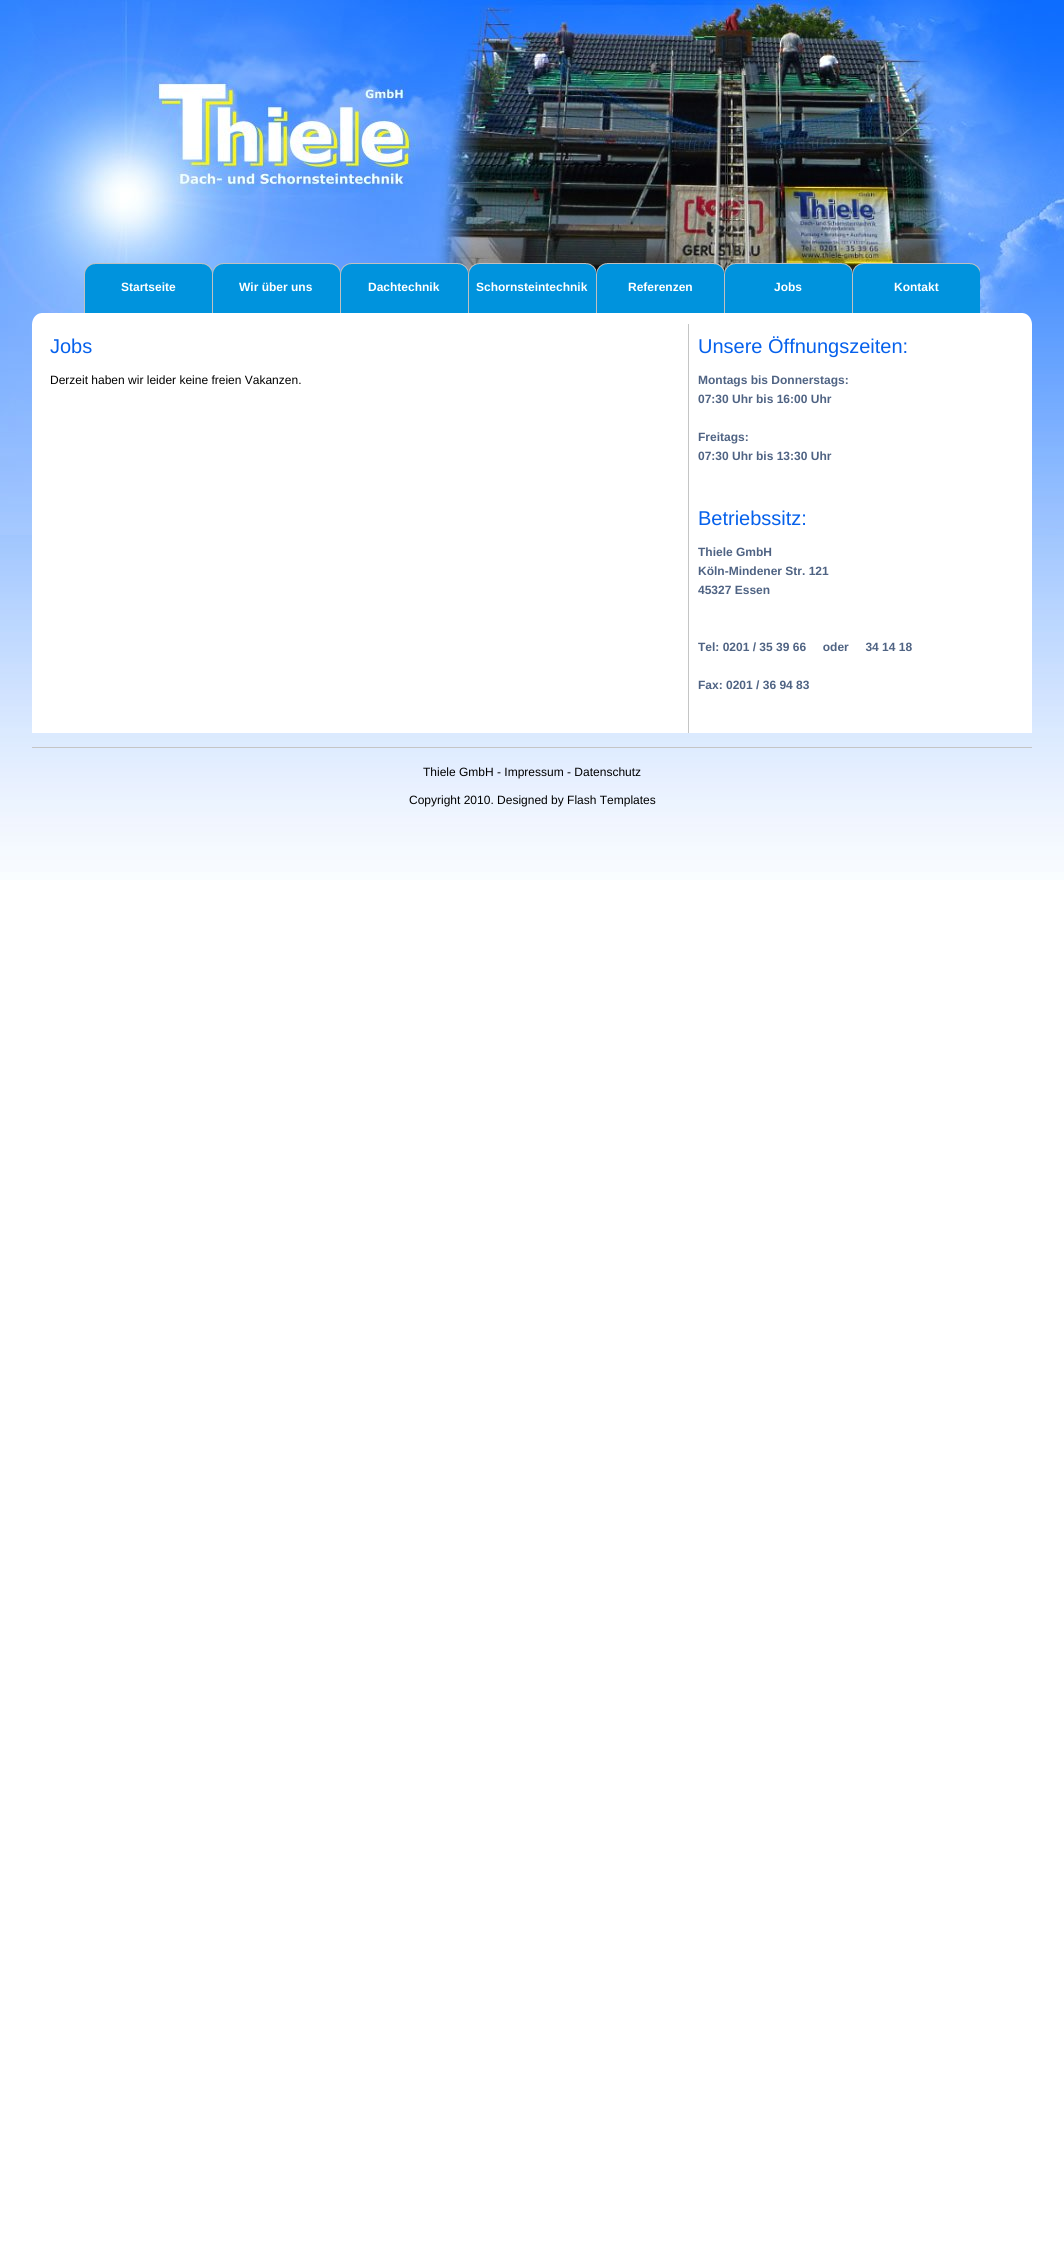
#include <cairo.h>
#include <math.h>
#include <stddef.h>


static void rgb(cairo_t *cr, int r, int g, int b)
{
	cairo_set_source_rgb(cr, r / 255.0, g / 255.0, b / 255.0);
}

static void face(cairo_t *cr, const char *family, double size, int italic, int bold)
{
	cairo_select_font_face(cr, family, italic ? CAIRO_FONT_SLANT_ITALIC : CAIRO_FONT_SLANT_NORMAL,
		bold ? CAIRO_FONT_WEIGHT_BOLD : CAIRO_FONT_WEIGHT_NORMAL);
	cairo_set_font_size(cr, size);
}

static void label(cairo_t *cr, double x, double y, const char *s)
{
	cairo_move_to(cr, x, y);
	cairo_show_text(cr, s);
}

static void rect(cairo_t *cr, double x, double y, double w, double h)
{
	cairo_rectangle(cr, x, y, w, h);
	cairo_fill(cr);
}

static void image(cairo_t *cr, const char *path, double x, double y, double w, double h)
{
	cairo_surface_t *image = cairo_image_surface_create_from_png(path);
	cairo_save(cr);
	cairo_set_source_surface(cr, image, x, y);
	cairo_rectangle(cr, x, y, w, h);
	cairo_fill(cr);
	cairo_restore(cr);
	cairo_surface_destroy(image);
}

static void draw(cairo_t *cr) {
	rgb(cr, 255, 255, 255);
	cairo_paint(cr);
	image(cr, "image0.png", 0, 535, 1064, 345);
	image(cr, "image1.png", 0, 0, 1064, 535);
	image(cr, "image2.png", 84, 263, 128, 50);
	face(cr, "Liberation Sans", 12, 0, 1);
	rgb(cr, 255, 255, 255);
	label(cr, 121, 291, "Startseite");
	image(cr, "image3.png", 212, 263, 128, 50);
	label(cr, 239, 291, "Wir über uns");
	image(cr, "image4.png", 340, 263, 128, 50);
	label(cr, 368, 291, "Dachtechnik");
	image(cr, "image5.png", 468, 263, 128, 50);
	label(cr, 476, 291, "Schornsteintechnik");
	image(cr, "image6.png", 596, 263, 128, 50);
	label(cr, 628, 291, "Referenzen");
	image(cr, "image7.png", 724, 263, 128, 50);
	label(cr, 774, 291, "Jobs");
	image(cr, "image8.png", 852, 263, 128, 50);
	label(cr, 894, 291, "Kontakt");
	image(cr, "image9.png", 32, 313, 1000, 11);
	rect(cr, 32, 324, 1000, 409);
	rgb(cr, 196, 197, 197);
	rect(cr, 688, 324, 1, 409);
	face(cr, "Liberation Sans", 20, 0, 0);
	rgb(cr, 6, 97, 236);
	label(cr, 50, 353, "Jobs");
	face(cr, "Liberation Sans", 12, 0, 0);
	rgb(cr, 0, 0, 0);
	label(cr, 50, 384, "Derzeit haben wir leider keine freien Vakanzen.");
	face(cr, "Liberation Sans", 20, 0, 0);
	rgb(cr, 6, 97, 236);
	label(cr, 698, 353, "Unsere Öffnungszeiten:");
	face(cr, "Liberation Sans", 12, 0, 1);
	rgb(cr, 79, 99, 131);
	label(cr, 698, 384, "Montags bis Donnerstags:");
	label(cr, 698, 403, "07:30 Uhr bis 16:00 Uhr");
	label(cr, 698, 441, "Freitags:");
	label(cr, 698, 460, "07:30 Uhr bis 13:30 Uhr");
	face(cr, "Liberation Sans", 20, 0, 0);
	rgb(cr, 6, 97, 236);
	label(cr, 698, 525, "Betriebssitz:");
	face(cr, "Liberation Sans", 12, 0, 1);
	rgb(cr, 79, 99, 131);
	label(cr, 698, 556, "Thiele GmbH");
	label(cr, 698, 575, "Köln-Mindener Str. 121");
	label(cr, 698, 594, "45327 Essen");
	label(cr, 698, 651, "Tel: 0201 / 35 39 66     oder     34 14 18");
	label(cr, 698, 689, "Fax: 0201 / 36 94 83");
	rgb(cr, 196, 197, 197);
	rect(cr, 32, 747, 1000, 1);
	face(cr, "Liberation Sans", 12, 0, 0);
	rgb(cr, 0, 0, 0);
	label(cr, 423, 776, "Thiele GmbH - Impressum - Datenschutz");
	label(cr, 409, 804, "Copyright 2010. Designed by Flash Templates");
}

int main(void) {
	cairo_surface_t *surface = cairo_image_surface_create(CAIRO_FORMAT_RGB24, 1064, 2261);
	cairo_t *cr = cairo_create(surface);
	cairo_font_options_t *options = cairo_font_options_create();
	cairo_font_options_set_hint_metrics(options, CAIRO_HINT_METRICS_OFF);
	cairo_font_options_set_hint_style(options, CAIRO_HINT_STYLE_NONE);
	cairo_set_font_options(cr, options);
	cairo_set_miter_limit(cr, 4);
	draw(cr);
	cairo_surface_write_to_png(surface, "render.png");
	cairo_font_options_destroy(options);
	cairo_destroy(cr);
	cairo_surface_destroy(surface);
	return 0;
}
